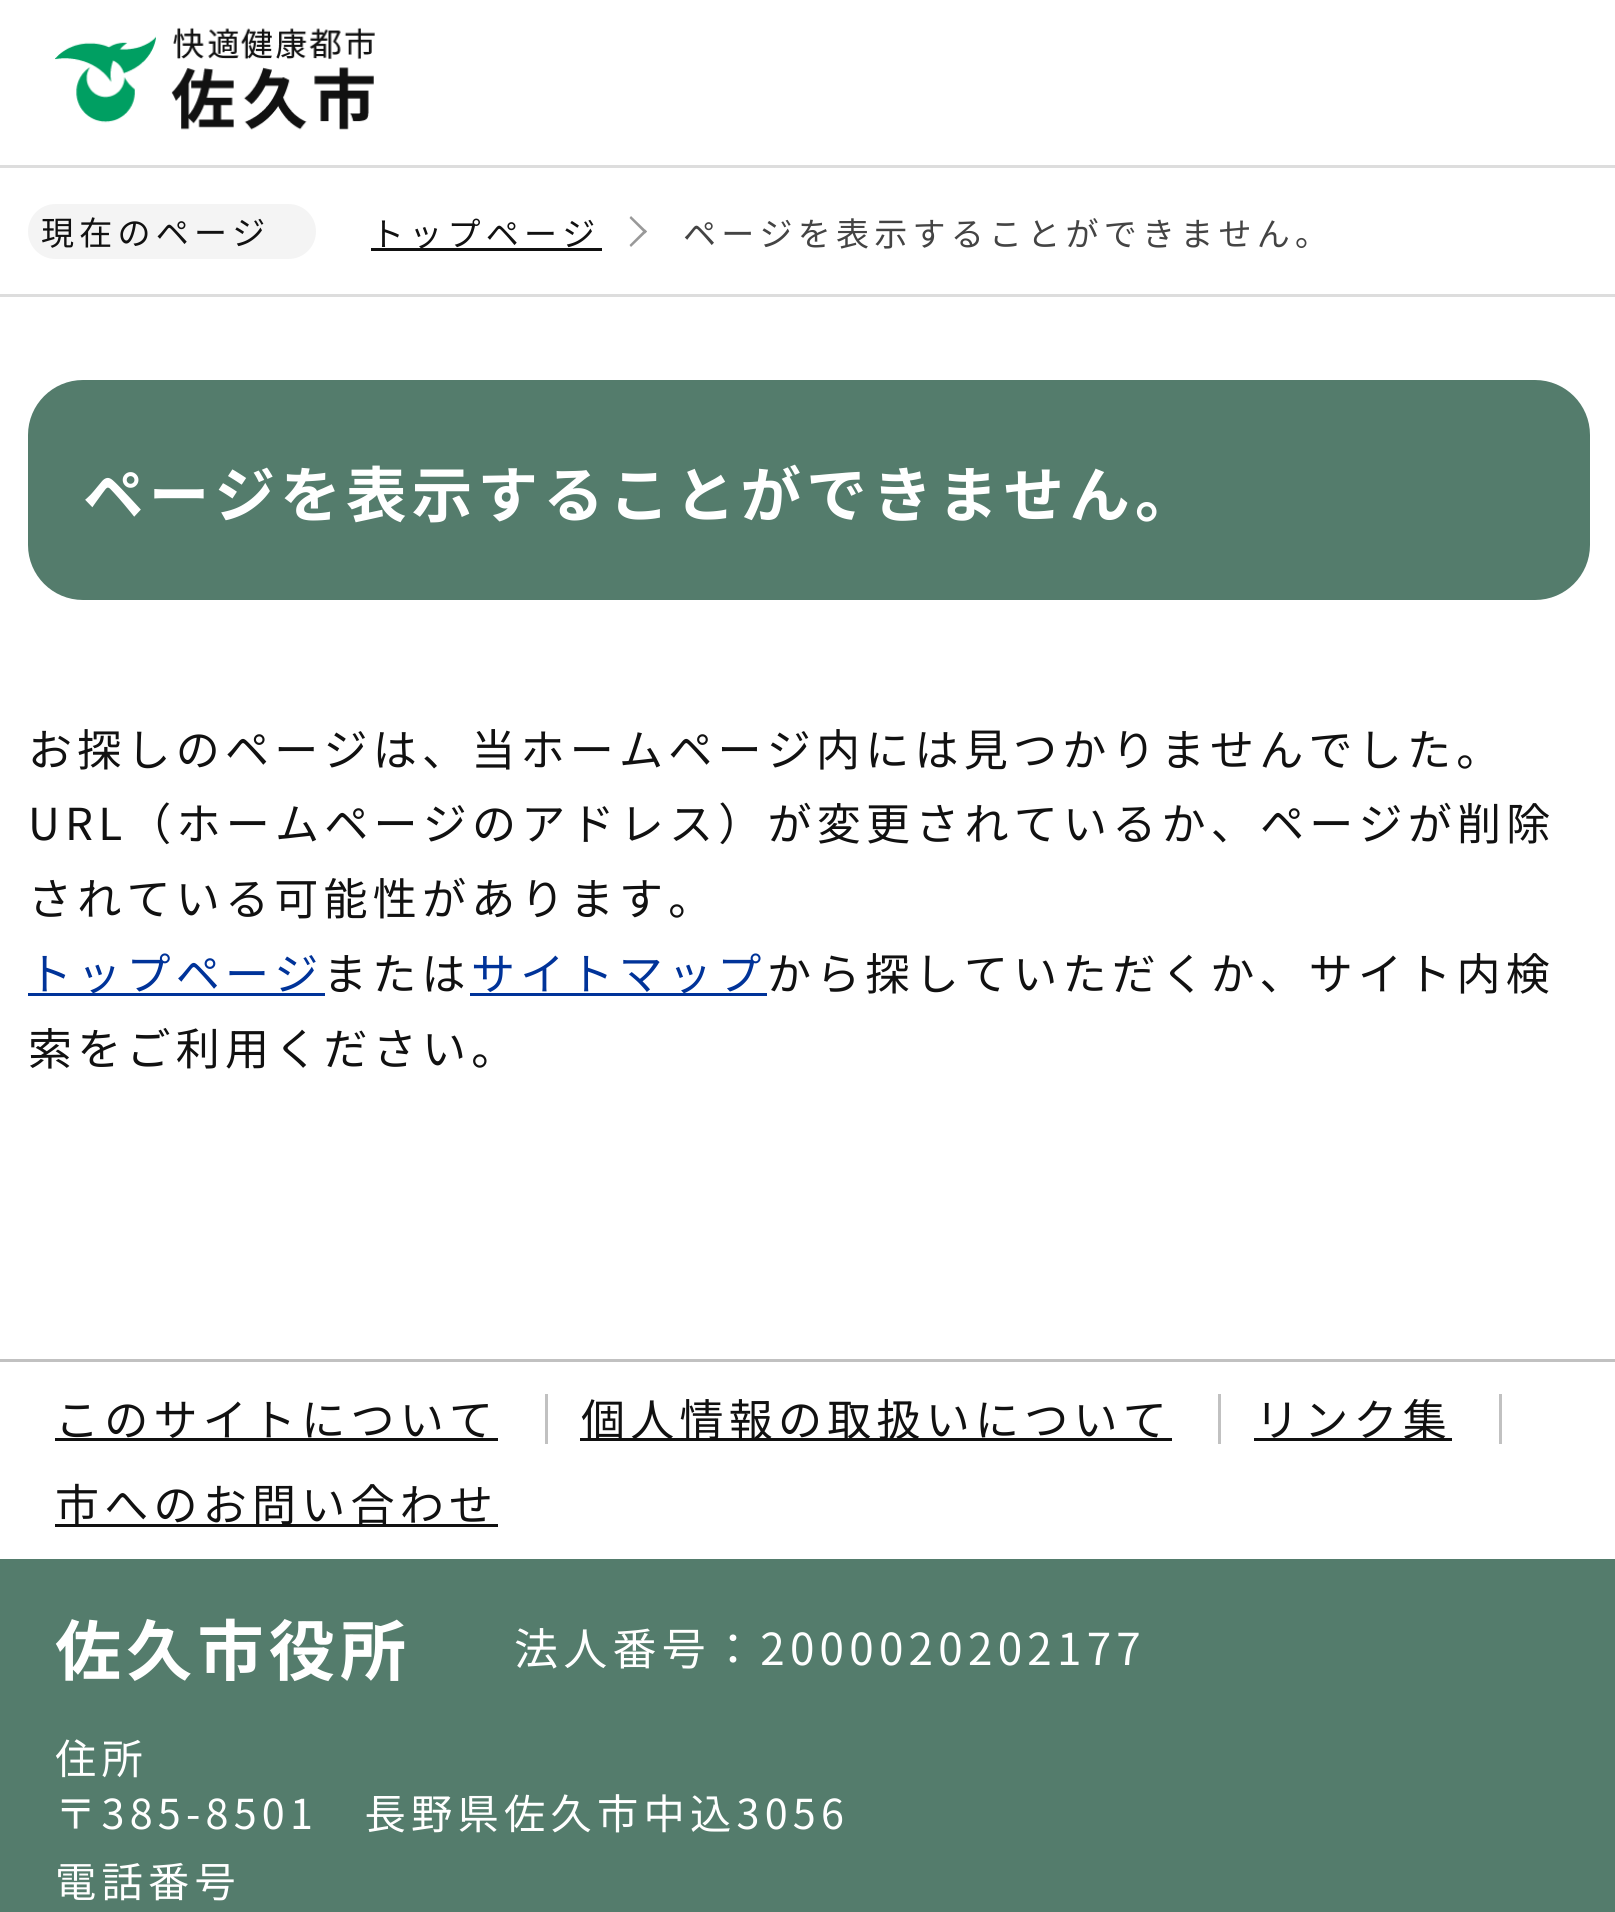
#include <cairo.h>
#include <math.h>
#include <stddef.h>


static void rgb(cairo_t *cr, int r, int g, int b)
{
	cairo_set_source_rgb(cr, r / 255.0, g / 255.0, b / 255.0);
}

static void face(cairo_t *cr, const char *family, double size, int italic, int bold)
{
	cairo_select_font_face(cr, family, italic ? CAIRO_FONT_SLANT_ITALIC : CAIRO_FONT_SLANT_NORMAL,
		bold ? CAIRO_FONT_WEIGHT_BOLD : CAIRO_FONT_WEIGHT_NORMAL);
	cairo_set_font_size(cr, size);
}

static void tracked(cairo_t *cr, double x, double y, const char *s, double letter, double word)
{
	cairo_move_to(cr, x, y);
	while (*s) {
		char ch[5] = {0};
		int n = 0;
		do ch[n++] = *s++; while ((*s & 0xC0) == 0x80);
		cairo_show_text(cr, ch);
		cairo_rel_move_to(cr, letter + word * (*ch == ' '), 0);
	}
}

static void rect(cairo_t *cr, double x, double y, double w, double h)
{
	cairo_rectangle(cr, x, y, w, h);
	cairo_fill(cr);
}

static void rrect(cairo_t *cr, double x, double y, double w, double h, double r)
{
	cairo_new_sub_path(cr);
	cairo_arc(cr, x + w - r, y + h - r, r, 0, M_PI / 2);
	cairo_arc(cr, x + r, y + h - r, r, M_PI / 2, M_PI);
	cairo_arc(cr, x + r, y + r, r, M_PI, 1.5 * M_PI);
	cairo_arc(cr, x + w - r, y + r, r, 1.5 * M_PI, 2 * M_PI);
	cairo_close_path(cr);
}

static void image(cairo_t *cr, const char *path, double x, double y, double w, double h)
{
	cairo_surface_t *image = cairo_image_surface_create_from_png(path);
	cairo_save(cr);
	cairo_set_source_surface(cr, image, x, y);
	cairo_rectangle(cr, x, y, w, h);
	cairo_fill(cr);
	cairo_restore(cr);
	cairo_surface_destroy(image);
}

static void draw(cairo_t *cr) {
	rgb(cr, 255, 255, 255);
	cairo_paint(cr);
	image(cr, "image0.png", 55, 27, 320, 103);
	rgb(cr, 221, 221, 221);
	rect(cr, 0, 165, 1615, 3);
	rect(cr, 0, 294, 1615, 3);
	rgb(cr, 244, 244, 244);
	rrect(cr, 28, 204, 288, 55, 27.5);
	cairo_fill(cr);
	face(cr, "Noto Sans JP", 33, 0, 0);
	rgb(cr, 17, 17, 17);
	tracked(cr, 41, 245, "現在のページ", 5.25, 0);
	rect(cr, 371, 248, 231, 3);
	tracked(cr, 371, 246, "トップページ", 5.25, 0);
	rgb(cr, 153, 153, 153);
	cairo_new_path(cr);
	cairo_move_to(cr, 631, 216);
	cairo_line_to(cr, 647, 231.5);
	cairo_line_to(cr, 645, 233.5);
	cairo_line_to(cr, 629.5, 218);
	cairo_close_path(cr);
	cairo_fill(cr);
	cairo_new_path(cr);
	cairo_move_to(cr, 645, 229.5);
	cairo_line_to(cr, 647, 231.5);
	cairo_line_to(cr, 631, 247);
	cairo_line_to(cr, 629.5, 245);
	cairo_close_path(cr);
	cairo_fill(cr);
	rgb(cr, 68, 68, 68);
	tracked(cr, 683, 246, "ページを表示することができません。", 5.25, 0);
	rgb(cr, 84, 124, 108);
	rrect(cr, 28, 380, 1562, 220, 55);
	cairo_fill(cr);
	face(cr, "Noto Sans JP", 60.5, 0, 1);
	rgb(cr, 255, 255, 255);
	tracked(cr, 83, 517, "ページを表示することができません。", 5.25, 0);
	face(cr, "Noto Sans JP", 44, 0, 0);
	rgb(cr, 17, 17, 17);
	tracked(cr, 28, 766, "お探しのページは、当ホームページ内には見つかりませんでした。", 5.25, 0);
	tracked(cr, 28, 840, "URL（ホームページのアドレス）が変更されているか、ページが削除", 5.25, 0);
	tracked(cr, 28, 915, "されている可能性があります。", 5.25, 0);
	rgb(cr, 0, 51, 153);
	rect(cr, 28, 993, 297, 3);
	tracked(cr, 28, 990, "トップページ", 5.25, 0);
	rgb(cr, 17, 17, 17);
	tracked(cr, 323, 990, "または", 5.25, 0);
	rgb(cr, 0, 51, 153);
	rect(cr, 470, 993, 297, 3);
	tracked(cr, 471, 990, "サイトマップ", 5.25, 0);
	rgb(cr, 17, 17, 17);
	tracked(cr, 767, 990, "から探していただくか、サイト内検", 5.25, 0);
	tracked(cr, 28, 1065, "索をご利用ください。", 5.25, 0);
	rgb(cr, 84, 124, 108);
	rect(cr, 0, 1559, 1615, 353);
	rgb(cr, 193, 193, 193);
	rect(cr, 0, 1359, 1615, 3);
	rgb(cr, 17, 17, 17);
	tracked(cr, 55, 1436, "このサイトについて", 5.25, 0);
	rect(cr, 55, 1438, 443, 3);
	rgb(cr, 193, 193, 193);
	rect(cr, 545, 1394, 3, 50);
	rgb(cr, 17, 17, 17);
	rect(cr, 580, 1438, 592, 3);
	tracked(cr, 581, 1436, "個人情報の取扱いについて", 5.25, 0);
	rgb(cr, 193, 193, 193);
	rect(cr, 1218, 1394, 3, 50);
	rgb(cr, 17, 17, 17);
	rect(cr, 1254, 1438, 198, 3);
	tracked(cr, 1255, 1436, "リンク集", 5.25, 0);
	rgb(cr, 193, 193, 193);
	rect(cr, 1499, 1394, 3, 50);
	rgb(cr, 17, 17, 17);
	rect(cr, 55, 1524, 443, 3);
	tracked(cr, 55, 1521, "市へのお問い合わせ", 5.25, 0);
	face(cr, "Noto Sans JP", 66, 0, 1);
	rgb(cr, 255, 255, 255);
	tracked(cr, 55, 1675, "佐久市役所", 5.25, 0);
	face(cr, "Noto Sans JP", 44, 0, 0);
	tracked(cr, 514, 1665, "法人番号：2000020202177", 5.25, 0);
	face(cr, "Noto Sans JP", 41.25, 0, 0);
	tracked(cr, 55, 1774, "住所", 5.25, 0);
	tracked(cr, 55, 1829, "〒385-8501　長野県佐久市中込3056", 5.25, 0);
	tracked(cr, 55, 1897, "電話番号", 5.25, 0);
}

int main(void) {
	cairo_surface_t *surface = cairo_image_surface_create(CAIRO_FORMAT_RGB24, 1615, 1912);
	cairo_t *cr = cairo_create(surface);
	cairo_font_options_t *options = cairo_font_options_create();
	cairo_font_options_set_hint_metrics(options, CAIRO_HINT_METRICS_OFF);
	cairo_font_options_set_hint_style(options, CAIRO_HINT_STYLE_NONE);
	cairo_set_font_options(cr, options);
	cairo_set_miter_limit(cr, 4);
	draw(cr);
	cairo_surface_write_to_png(surface, "render.png");
	cairo_font_options_destroy(options);
	cairo_destroy(cr);
	cairo_surface_destroy(surface);
	return 0;
}
